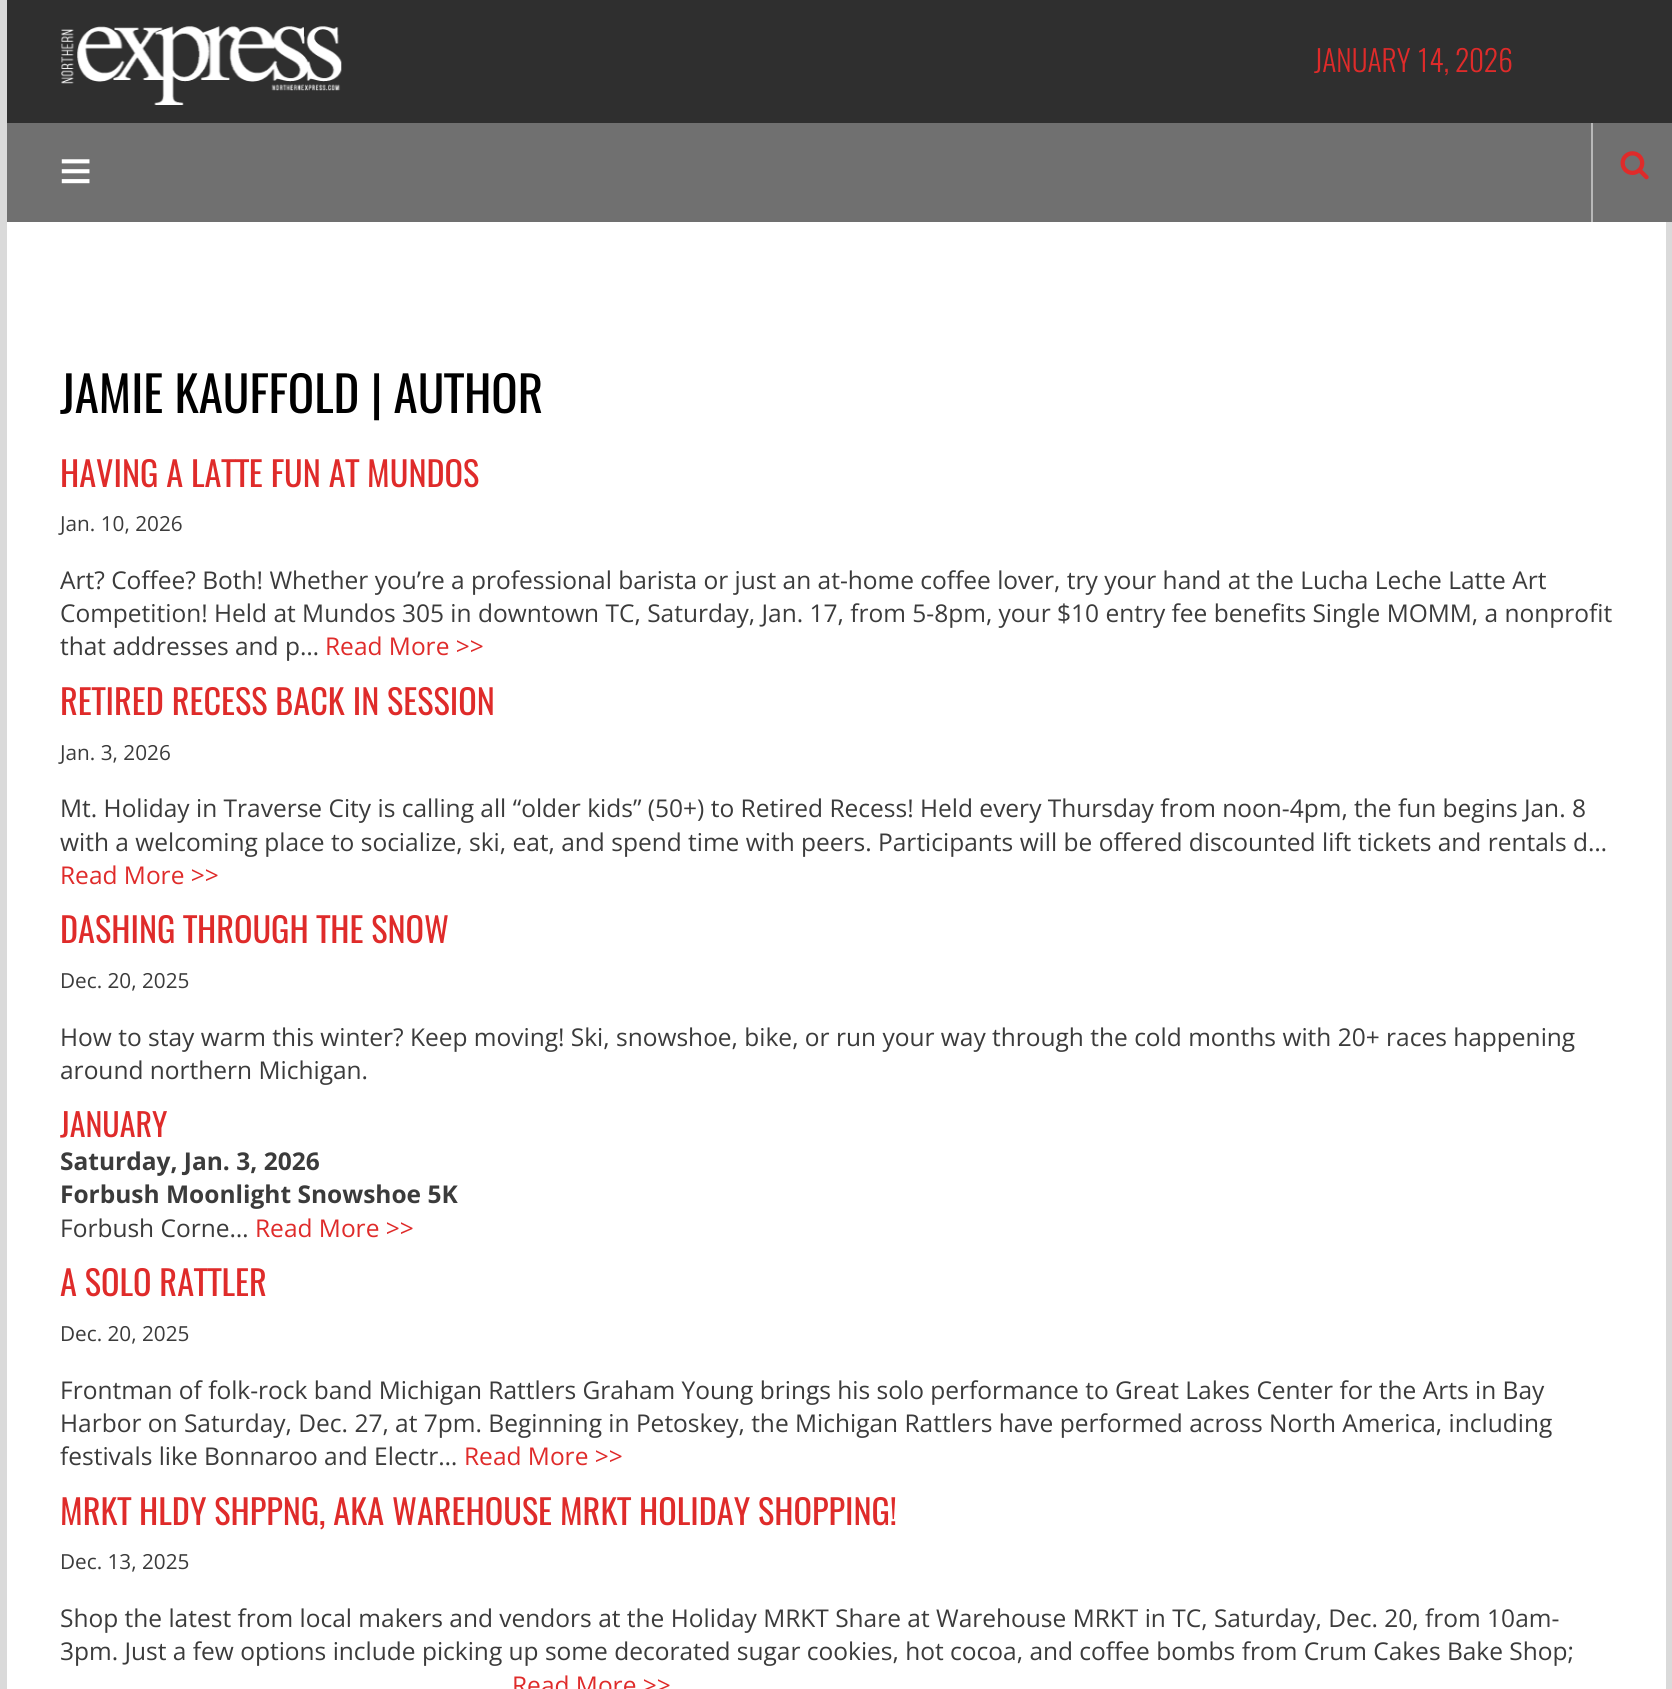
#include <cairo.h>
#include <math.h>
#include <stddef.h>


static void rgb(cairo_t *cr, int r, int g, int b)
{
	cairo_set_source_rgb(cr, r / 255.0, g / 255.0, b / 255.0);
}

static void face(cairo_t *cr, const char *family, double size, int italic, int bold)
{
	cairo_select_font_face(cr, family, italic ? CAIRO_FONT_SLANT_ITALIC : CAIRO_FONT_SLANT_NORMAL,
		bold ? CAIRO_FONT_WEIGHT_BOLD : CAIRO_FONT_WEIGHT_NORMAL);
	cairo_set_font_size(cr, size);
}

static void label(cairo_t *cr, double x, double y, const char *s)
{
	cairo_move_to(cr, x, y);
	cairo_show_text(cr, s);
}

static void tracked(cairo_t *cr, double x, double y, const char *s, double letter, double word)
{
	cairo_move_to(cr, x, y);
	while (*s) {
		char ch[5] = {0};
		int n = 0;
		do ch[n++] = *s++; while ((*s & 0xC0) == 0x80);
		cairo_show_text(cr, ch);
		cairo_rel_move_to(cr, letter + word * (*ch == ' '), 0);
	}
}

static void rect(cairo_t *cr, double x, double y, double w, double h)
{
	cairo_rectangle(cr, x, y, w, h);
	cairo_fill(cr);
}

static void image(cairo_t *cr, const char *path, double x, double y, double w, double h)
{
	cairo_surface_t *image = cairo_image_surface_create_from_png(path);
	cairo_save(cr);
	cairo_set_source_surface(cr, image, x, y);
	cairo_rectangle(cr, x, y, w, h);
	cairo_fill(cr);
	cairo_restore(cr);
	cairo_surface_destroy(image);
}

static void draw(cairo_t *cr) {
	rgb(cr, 218, 218, 218);
	cairo_paint(cr);
	rgb(cr, 47, 47, 47);
	rect(cr, 7, 0, 1665, 123);
	image(cr, "image0.png", 61, 26, 281, 79);
	face(cr, "Oswald Light", 29.5, 0, 0);
	rgb(cr, 223, 43, 42);
	label(cr, 1314, 72, "JANUARY 14, 2026");
	rgb(cr, 112, 112, 112);
	rect(cr, 7, 123, 1665, 99);
	rgb(cr, 184, 184, 184);
	rect(cr, 1591, 123, 2, 99);
	face(cr, "Liberation Sans", 57, 0, 0);
	rgb(cr, 255, 255, 255);
	tracked(cr, 59, 190, "≡", 2, 0);
	image(cr, "image1.png", 1620, 151, 29, 29);
	rect(cr, 7, 222, 1659, 1467);
	face(cr, "Oswald", 49, 0, 0);
	rgb(cr, 0, 0, 0);
	label(cr, 60, 413, "JAMIE KAUFFOLD | AUTHOR");
	face(cr, "Oswald", 34.3, 0, 0);
	rgb(cr, 223, 43, 42);
	label(cr, 60, 487, "HAVING A LATTE FUN AT MUNDOS");
	face(cr, "Open Sans", 20.75, 0, 0);
	rgb(cr, 59, 59, 59);
	label(cr, 60, 531, "Jan. 10, 2026");
	face(cr, "Open Sans", 24.5, 0, 0);
	label(cr, 60, 589, "Art? Coffee? Both! Whether you’re a professional barista or just an at-home coffee lover, try your hand at the Lucha Leche Latte Art");
	label(cr, 60, 622, "Competition! Held at Mundos 305 in downtown TC, Saturday, Jan. 17, from 5-8pm, your $10 entry fee benefits Single MOMM, a nonprofit");
	label(cr, 60, 655, "that addresses and p…");
	rgb(cr, 223, 43, 42);
	label(cr, 325, 655, "Read More >>");
	face(cr, "Oswald", 34.3, 0, 0);
	label(cr, 60, 715, "RETIRED RECESS BACK IN SESSION");
	face(cr, "Open Sans", 20.75, 0, 0);
	rgb(cr, 59, 59, 59);
	label(cr, 60, 760, "Jan. 3, 2026");
	face(cr, "Open Sans", 24.5, 0, 0);
	label(cr, 60, 817, "Mt. Holiday in Traverse City is calling all “older kids” (50+) to Retired Recess! Held every Thursday from noon-4pm, the fun begins Jan. 8");
	label(cr, 60, 851, "with a welcoming place to socialize, ski, eat, and spend time with peers. Participants will be offered discounted lift tickets and rentals d…");
	rgb(cr, 223, 43, 42);
	label(cr, 60, 884, "Read More >>");
	face(cr, "Oswald", 34.3, 0, 0);
	label(cr, 60, 943, "DASHING THROUGH THE SNOW");
	face(cr, "Open Sans", 20.75, 0, 0);
	rgb(cr, 59, 59, 59);
	label(cr, 60, 988, "Dec. 20, 2025");
	face(cr, "Open Sans", 24.5, 0, 0);
	label(cr, 60, 1046, "How to stay warm this winter? Keep moving! Ski, snowshoe, bike, or run your way through the cold months with 20+ races happening");
	label(cr, 60, 1079, "around northern Michigan.");
	face(cr, "Oswald", 32, 0, 0);
	rgb(cr, 223, 43, 42);
	label(cr, 60, 1137, "JANUARY");
	face(cr, "Open Sans", 24.5, 0, 1);
	rgb(cr, 59, 59, 59);
	label(cr, 60, 1170, "Saturday, Jan. 3, 2026");
	label(cr, 60, 1203, "Forbush Moonlight Snowshoe 5K");
	face(cr, "Open Sans", 24.5, 0, 0);
	label(cr, 60, 1237, "Forbush Corne…");
	rgb(cr, 223, 43, 42);
	label(cr, 255, 1237, "Read More >>");
	face(cr, "Oswald", 34.3, 0, 0);
	label(cr, 60, 1296, "A SOLO RATTLER");
	face(cr, "Open Sans", 20.75, 0, 0);
	rgb(cr, 59, 59, 59);
	label(cr, 60, 1341, "Dec. 20, 2025");
	face(cr, "Open Sans", 24.5, 0, 0);
	label(cr, 60, 1399, "Frontman of folk-rock band Michigan Rattlers Graham Young brings his solo performance to Great Lakes Center for the Arts in Bay");
	label(cr, 60, 1432, "Harbor on Saturday, Dec. 27, at 7pm. Beginning in Petoskey, the Michigan Rattlers have performed across North America, including");
	label(cr, 60, 1465, "festivals like Bonnaroo and Electr…");
	rgb(cr, 223, 43, 42);
	label(cr, 464, 1465, "Read More >>");
	face(cr, "Oswald", 34.3, 0, 0);
	label(cr, 60, 1525, "MRKT HLDY SHPPNG, AKA WAREHOUSE MRKT HOLIDAY SHOPPING!");
	face(cr, "Open Sans", 20.75, 0, 0);
	rgb(cr, 59, 59, 59);
	label(cr, 60, 1569, "Dec. 13, 2025");
	face(cr, "Open Sans", 24.5, 0, 0);
	label(cr, 60, 1627, "Shop the latest from local makers and vendors at the Holiday MRKT Share at Warehouse MRKT in TC, Saturday, Dec. 20, from 10am-");
	label(cr, 60, 1660, "3pm. Just a few options include picking up some decorated sugar cookies, hot cocoa, and coffee bombs from Crum Cakes Bake Shop;");
	rgb(cr, 223, 43, 42);
	label(cr, 512, 1694, "Read More >>");
}

int main(void) {
	cairo_surface_t *surface = cairo_image_surface_create(CAIRO_FORMAT_RGB24, 1672, 1689);
	cairo_t *cr = cairo_create(surface);
	cairo_font_options_t *options = cairo_font_options_create();
	cairo_font_options_set_hint_metrics(options, CAIRO_HINT_METRICS_OFF);
	cairo_font_options_set_hint_style(options, CAIRO_HINT_STYLE_NONE);
	cairo_set_font_options(cr, options);
	cairo_set_miter_limit(cr, 4);
	draw(cr);
	cairo_surface_write_to_png(surface, "render.png");
	cairo_font_options_destroy(options);
	cairo_destroy(cr);
	cairo_surface_destroy(surface);
	return 0;
}
